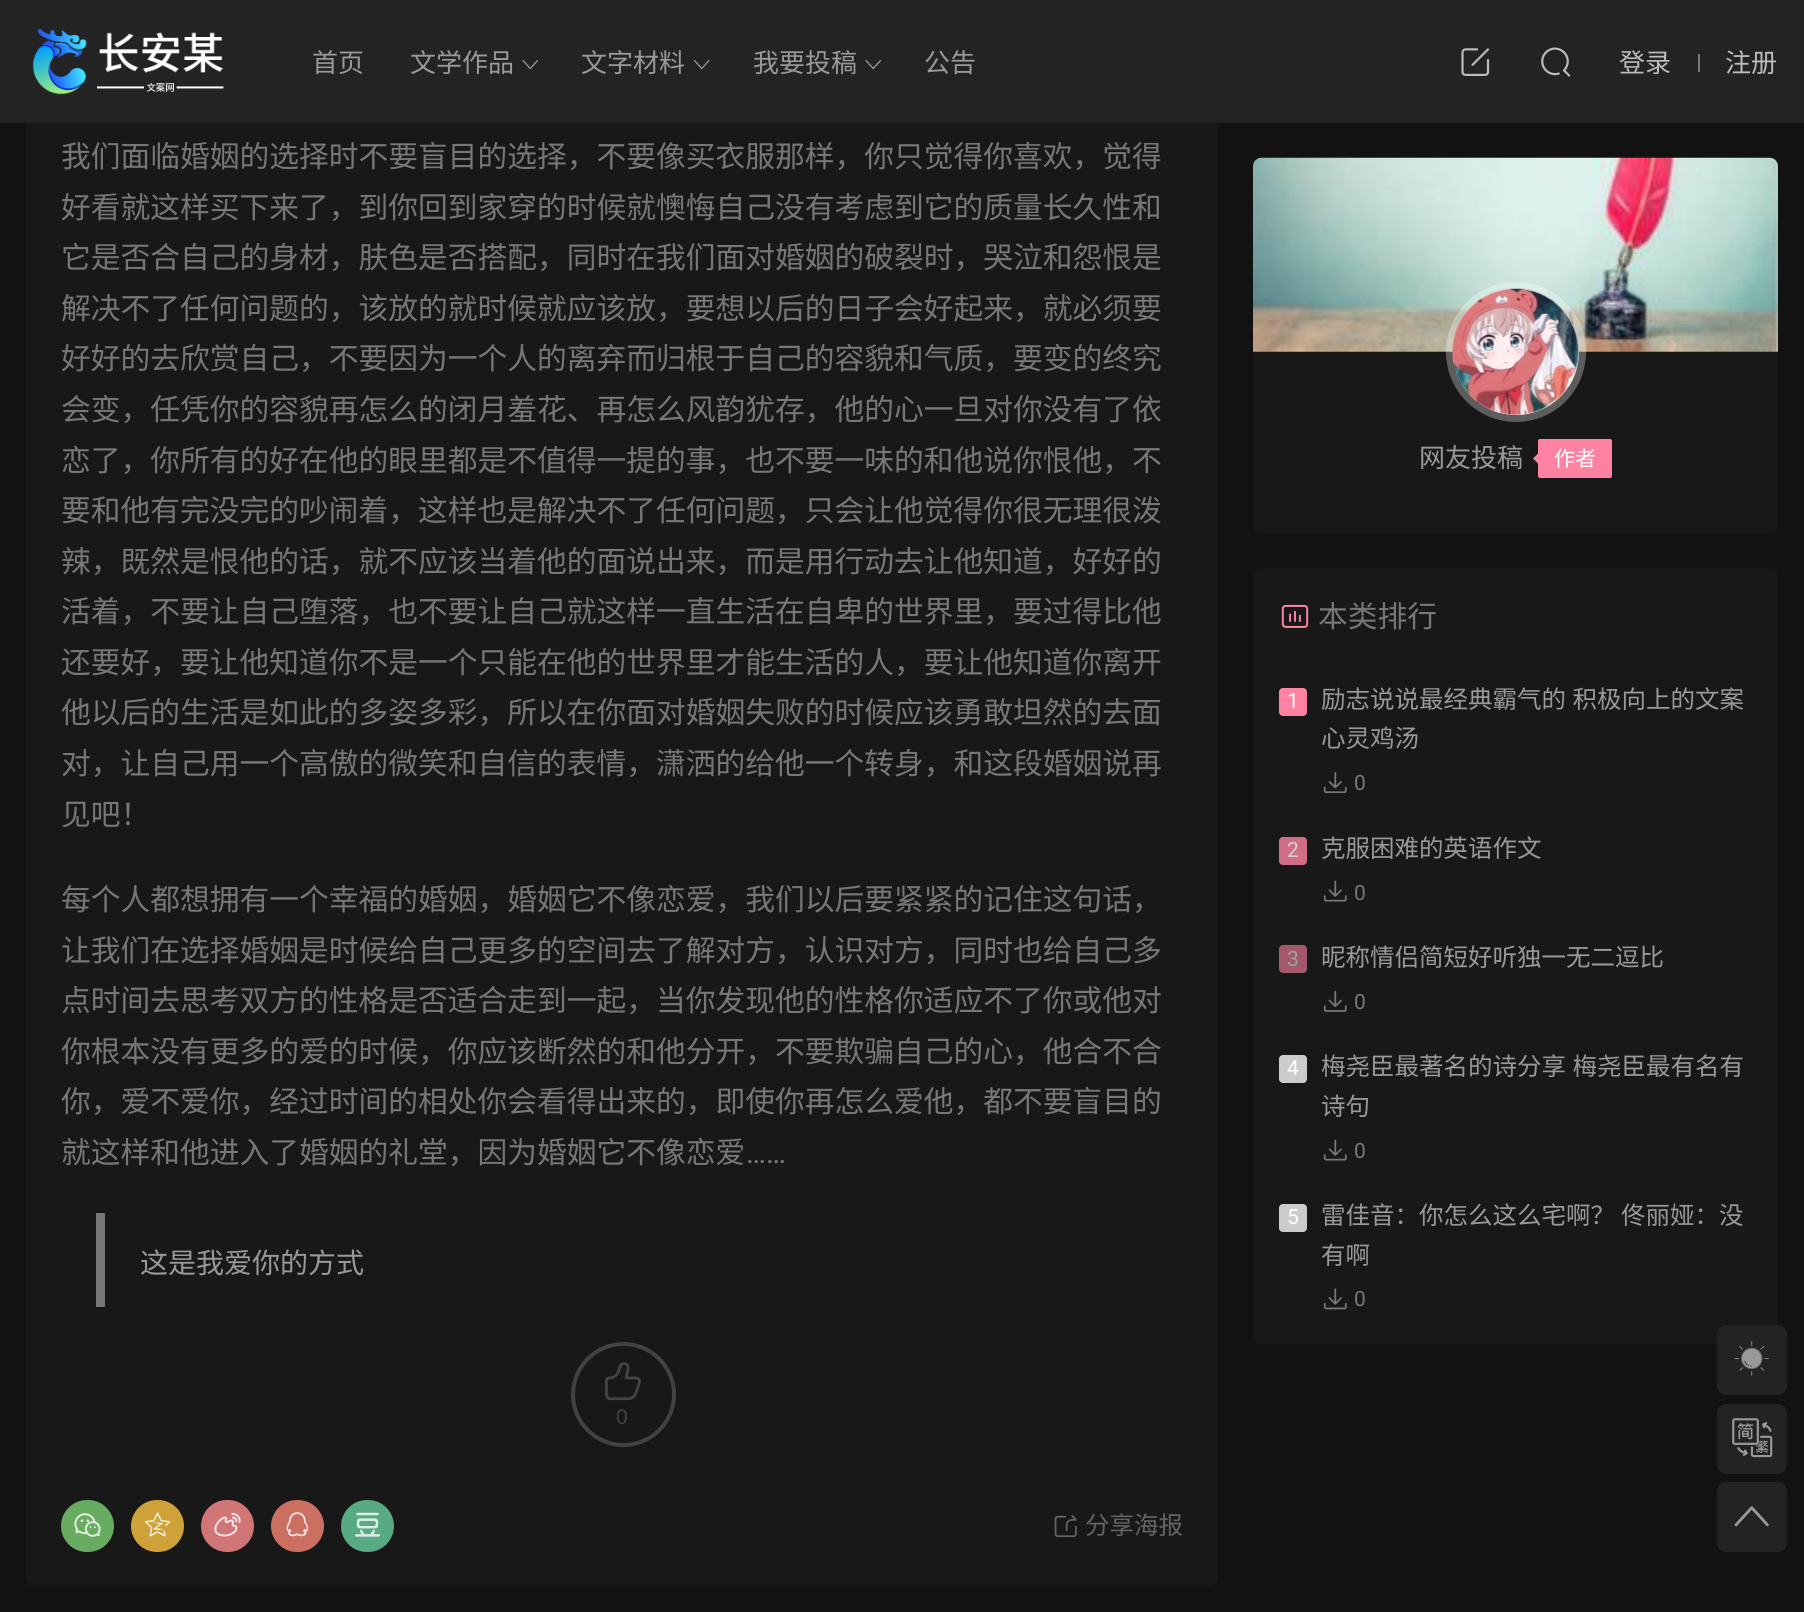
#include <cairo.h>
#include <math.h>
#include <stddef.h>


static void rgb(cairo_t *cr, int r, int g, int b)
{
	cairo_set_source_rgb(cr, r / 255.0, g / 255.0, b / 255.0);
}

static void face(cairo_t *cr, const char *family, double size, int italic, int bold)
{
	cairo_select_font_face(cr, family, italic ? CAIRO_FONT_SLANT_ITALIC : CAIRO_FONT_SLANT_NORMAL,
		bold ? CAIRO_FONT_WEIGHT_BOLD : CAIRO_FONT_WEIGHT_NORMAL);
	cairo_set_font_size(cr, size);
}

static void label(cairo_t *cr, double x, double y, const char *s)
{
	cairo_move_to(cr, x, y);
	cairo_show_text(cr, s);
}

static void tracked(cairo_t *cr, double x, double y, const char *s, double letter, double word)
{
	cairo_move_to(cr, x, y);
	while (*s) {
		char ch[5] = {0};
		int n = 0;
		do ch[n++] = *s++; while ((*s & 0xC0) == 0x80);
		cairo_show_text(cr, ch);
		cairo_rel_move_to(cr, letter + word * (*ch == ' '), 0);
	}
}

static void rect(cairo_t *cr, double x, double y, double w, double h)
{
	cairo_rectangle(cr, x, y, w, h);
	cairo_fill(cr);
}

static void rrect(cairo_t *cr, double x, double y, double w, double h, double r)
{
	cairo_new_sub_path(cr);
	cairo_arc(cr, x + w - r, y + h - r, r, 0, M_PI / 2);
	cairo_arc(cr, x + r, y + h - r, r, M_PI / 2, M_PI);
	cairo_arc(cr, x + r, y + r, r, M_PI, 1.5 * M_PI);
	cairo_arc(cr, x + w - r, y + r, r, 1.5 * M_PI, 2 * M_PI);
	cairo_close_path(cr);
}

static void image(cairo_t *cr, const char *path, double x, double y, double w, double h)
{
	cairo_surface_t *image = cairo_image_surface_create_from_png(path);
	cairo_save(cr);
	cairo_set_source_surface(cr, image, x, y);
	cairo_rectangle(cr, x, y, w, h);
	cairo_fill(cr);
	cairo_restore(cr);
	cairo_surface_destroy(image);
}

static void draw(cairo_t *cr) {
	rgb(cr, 18, 18, 18);
	cairo_paint(cr);
	rgb(cr, 24, 24, 24);
	rrect(cr, 26, -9, 1192, 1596, 9);
	cairo_fill(cr);
	rgb(cr, 35, 35, 35);
	rect(cr, 0, 0, 1804, 123);
	image(cr, "image0.png", 32, 29, 192, 66);
	face(cr, "Noto Sans CJK SC", 26, 0, 0);
	rgb(cr, 153, 153, 153);
	label(cr, 312, 72, "首页");
	label(cr, 410, 72, "文学作品");
	image(cr, "image1.png", 522, 60, 16, 10);
	label(cr, 581, 72, "文字材料");
	image(cr, "image2.png", 693, 60, 17, 10);
	label(cr, 753, 72, "我要投稿");
	image(cr, "image1.png", 865, 60, 16, 10);
	label(cr, 924, 72, "公告");
	image(cr, "image3.png", 1461, 48, 29, 28);
	image(cr, "image4.png", 1541, 47, 30, 30);
	rgb(cr, 187, 187, 187);
	label(cr, 1619, 72, "登录");
	rgb(cr, 119, 119, 119);
	rect(cr, 1698, 54, 2, 18);
	rgb(cr, 187, 187, 187);
	label(cr, 1725, 72, "注册");
	face(cr, "Noto Sans CJK SC", 29.75, 0, 0);
	rgb(cr, 119, 119, 119);
	label(cr, 61, 167, "我们面临婚姻的选择时不要盲目的选择，不要像买衣服那样，你只觉得你喜欢，觉得");
	label(cr, 61, 218, "好看就这样买下来了，到你回到家穿的时候就懊悔自己没有考虑到它的质量长久性和");
	label(cr, 61, 268, "它是否合自己的身材，肤色是否搭配，同时在我们面对婚姻的破裂时，哭泣和怨恨是");
	label(cr, 61, 319, "解决不了任何问题的，该放的就时候就应该放，要想以后的日子会好起来，就必须要");
	label(cr, 61, 369, "好好的去欣赏自己，不要因为一个人的离弃而归根于自己的容貌和气质，要变的终究");
	label(cr, 61, 420, "会变，任凭你的容貌再怎么的闭月羞花、再怎么风韵犹存，他的心一旦对你没有了依");
	label(cr, 61, 471, "恋了，你所有的好在他的眼里都是不值得一提的事，也不要一味的和他说你恨他，不");
	label(cr, 61, 521, "要和他有完没完的吵闹着，这样也是解决不了任何问题，只会让他觉得你很无理很泼");
	label(cr, 61, 572, "辣，既然是恨他的话，就不应该当着他的面说出来，而是用行动去让他知道，好好的");
	label(cr, 61, 622, "活着，不要让自己堕落，也不要让自己就这样一直生活在自卑的世界里，要过得比他");
	label(cr, 61, 673, "还要好，要让他知道你不是一个只能在他的世界里才能生活的人，要让他知道你离开");
	label(cr, 61, 723, "他以后的生活是如此的多姿多彩，所以在你面对婚姻失败的时候应该勇敢坦然的去面");
	label(cr, 61, 774, "对，让自己用一个高傲的微笑和自信的表情，潇洒的给他一个转身，和这段婚姻说再");
	label(cr, 61, 825, "见吧！");
	label(cr, 61, 910, "每个人都想拥有一个幸福的婚姻，婚姻它不像恋爱，我们以后要紧紧的记住这句话，");
	label(cr, 61, 961, "让我们在选择婚姻是时候给自己更多的空间去了解对方，认识对方，同时也给自己多");
	label(cr, 61, 1011, "点时间去思考双方的性格是否适合走到一起，当你发现他的性格你适应不了你或他对");
	label(cr, 61, 1062, "你根本没有更多的爱的时候，你应该断然的和他分开，不要欺骗自己的心，他合不合");
	label(cr, 61, 1112, "你，爱不爱你，经过时间的相处你会看得出来的，即使你再怎么爱他，都不要盲目的");
	label(cr, 61, 1163, "就这样和他进入了婚姻的礼堂，因为婚姻它不像恋爱");
	face(cr, "Roboto", 29.75, 0, 0);
	label(cr, 746, 1163, "……");
	rect(cr, 96, 1213, 9, 94);
	face(cr, "Noto Sans CJK SC", 28, 0, 0);
	rgb(cr, 153, 153, 153);
	label(cr, 140, 1273, "这是我爱你的方式");
	cairo_new_path(cr);
	cairo_arc(cr, 623.5, 1394.5, 50.5, 0, 2 * M_PI);
	rgb(cr, 65, 66, 67);
	cairo_set_line_width(cr, 4);
	cairo_stroke(cr);
	image(cr, "image5.png", 605, 1362, 36, 39);
	face(cr, "Liberation Sans", 21, 0, 0);
	label(cr, 616, 1424, "0");
	rgb(cr, 103, 172, 96);
	rrect(cr, 61, 1500, 53, 52, 26);
	cairo_fill(cr);
	image(cr, "image6.png", 74, 1513, 27, 24);
	rgb(cr, 206, 162, 56);
	rrect(cr, 131, 1500, 53, 52, 26);
	cairo_fill(cr);
	image(cr, "image7.png", 144, 1512, 27, 25);
	rgb(cr, 209, 118, 118);
	rrect(cr, 201, 1500, 53, 52, 26);
	cairo_fill(cr);
	image(cr, "image8.png", 214, 1512, 27, 25);
	rgb(cr, 202, 111, 98);
	rrect(cr, 271, 1500, 53, 52, 26);
	cairo_fill(cr);
	image(cr, "image9.png", 286, 1512, 23, 25);
	rgb(cr, 87, 170, 129);
	rrect(cr, 341, 1500, 53, 52, 26);
	cairo_fill(cr);
	image(cr, "image10.png", 354, 1512, 27, 25);
	image(cr, "image11.png", 1054, 1515, 23, 23);
	face(cr, "Noto Sans CJK SC", 24.5, 0, 0);
	rgb(cr, 100, 100, 100);
	label(cr, 1085, 1534, "分享海报");
	rgb(cr, 24, 24, 24);
	rrect(cr, 1253, 158, 525, 376, 9);
	cairo_fill(cr);
	image(cr, "image12.png", 1253, 157, 525, 195);
	cairo_set_source_rgba(cr, 1, 1, 1, 0.3);
	cairo_arc(cr, 1516, 352, 70, 0, 2 * M_PI);
	cairo_fill(cr);
	rgb(cr, 255, 255, 255);
	cairo_arc(cr, 1516, 352, 63, 0, 2 * M_PI);
	cairo_fill(cr);
	image(cr, "image13.png", 1452, 288, 127, 127);
	face(cr, "Noto Sans CJK SC", 26, 0, 0);
	rgb(cr, 153, 153, 153);
	label(cr, 1419, 467, "网友投稿");
	rgb(cr, 255, 130, 163);
	rrect(cr, 1539, 440, 72, 37, 1);
	cairo_fill_preserve(cr);
	cairo_set_line_width(cr, 2);
	cairo_stroke(cr);
	cairo_new_path(cr);
	cairo_move_to(cr, 1540, 451.5);
	cairo_line_to(cr, 1540, 465.5);
	cairo_line_to(cr, 1533, 458.5);
	cairo_close_path(cr);
	cairo_fill(cr);
	face(cr, "Noto Sans CJK SC", 21, 0, 0);
	rgb(cr, 255, 255, 255);
	label(cr, 1554, 466, "作者");
	rgb(cr, 24, 24, 24);
	rrect(cr, 1253, 569, 525, 775, 9);
	cairo_fill(cr);
	image(cr, "image14.png", 1281, 604, 28, 24);
	face(cr, "Noto Sans CJK SC", 29.75, 0, 0);
	rgb(cr, 119, 119, 119);
	label(cr, 1318, 627, "本类排行");
	rgb(cr, 255, 130, 163);
	rrect(cr, 1279, 688, 28, 28, 4);
	cairo_fill(cr);
	face(cr, "Roboto", 21, 0, 0);
	rgb(cr, 255, 255, 255);
	label(cr, 1287, 708, "1");
	face(cr, "Noto Sans CJK SC", 24.5, 0, 0);
	rgb(cr, 153, 153, 153);
	tracked(cr, 1321, 708, "励志说说最经典霸气的 积极向上的文案", 0, 1);
	label(cr, 1321, 747, "心灵鸡汤");
	image(cr, "image15.png", 1323, 772, 24, 22);
	face(cr, "Roboto", 21, 0, 0);
	rgb(cr, 119, 119, 119);
	label(cr, 1354, 790, "0");
	rgb(cr, 209, 109, 135);
	rrect(cr, 1279, 837, 28, 28, 4);
	cairo_fill(cr);
	rgb(cr, 209, 209, 209);
	label(cr, 1287, 857, "2");
	face(cr, "Noto Sans CJK SC", 24.5, 0, 0);
	rgb(cr, 153, 153, 153);
	label(cr, 1321, 857, "克服困难的英语作文");
	image(cr, "image16.png", 1323, 880, 24, 22);
	face(cr, "Roboto", 21, 0, 0);
	rgb(cr, 119, 119, 119);
	label(cr, 1354, 900, "0");
	rgb(cr, 163, 88, 107);
	rrect(cr, 1279, 945, 28, 28, 4);
	cairo_fill(cr);
	rgb(cr, 163, 163, 163);
	label(cr, 1287, 966, "3");
	face(cr, "Noto Sans CJK SC", 24.5, 0, 0);
	rgb(cr, 153, 153, 153);
	label(cr, 1321, 966, "昵称情侣简短好听独一无二逗比");
	image(cr, "image17.png", 1323, 990, 24, 22);
	face(cr, "Roboto", 21, 0, 0);
	rgb(cr, 119, 119, 119);
	label(cr, 1354, 1009, "0");
	rgb(cr, 204, 204, 204);
	rrect(cr, 1279, 1055, 28, 28, 4);
	cairo_fill(cr);
	rgb(cr, 255, 255, 255);
	label(cr, 1287, 1075, "4");
	face(cr, "Noto Sans CJK SC", 24.5, 0, 0);
	rgb(cr, 153, 153, 153);
	tracked(cr, 1321, 1075, "梅尧臣最著名的诗分享 梅尧臣最有名有", 0, 1);
	label(cr, 1321, 1115, "诗句");
	image(cr, "image16.png", 1323, 1139, 24, 22);
	face(cr, "Roboto", 21, 0, 0);
	rgb(cr, 119, 119, 119);
	label(cr, 1354, 1158, "0");
	rgb(cr, 204, 204, 204);
	rrect(cr, 1279, 1204, 28, 28, 4);
	cairo_fill(cr);
	rgb(cr, 255, 255, 255);
	label(cr, 1287, 1224, "5");
	face(cr, "Noto Sans CJK SC", 24.5, 0, 0);
	rgb(cr, 153, 153, 153);
	label(cr, 1321, 1224, "雷佳音：你怎么这么宅啊？");
	label(cr, 1621, 1224, "佟丽娅：没");
	label(cr, 1321, 1264, "有啊");
	image(cr, "image18.png", 1323, 1288, 24, 22);
	face(cr, "Roboto", 21, 0, 0);
	rgb(cr, 119, 119, 119);
	label(cr, 1354, 1306, "0");
	rgb(cr, 35, 35, 35);
	rrect(cr, 1717, 1325, 70, 70, 9);
	cairo_fill(cr);
	image(cr, "image19.png", 1734, 1341, 35, 35);
	rrect(cr, 1717, 1404, 70, 70, 9);
	cairo_fill(cr);
	image(cr, "image20.png", 1732, 1418, 41, 40);
	rrect(cr, 1717, 1482, 70, 70, 9);
	cairo_fill(cr);
	image(cr, "image21.png", 1734, 1506, 35, 21);
}

int main(void) {
	cairo_surface_t *surface = cairo_image_surface_create(CAIRO_FORMAT_RGB24, 1804, 1612);
	cairo_t *cr = cairo_create(surface);
	cairo_font_options_t *options = cairo_font_options_create();
	cairo_font_options_set_hint_metrics(options, CAIRO_HINT_METRICS_OFF);
	cairo_font_options_set_hint_style(options, CAIRO_HINT_STYLE_NONE);
	cairo_set_font_options(cr, options);
	cairo_set_miter_limit(cr, 4);
	draw(cr);
	cairo_surface_write_to_png(surface, "render.png");
	cairo_font_options_destroy(options);
	cairo_destroy(cr);
	cairo_surface_destroy(surface);
	return 0;
}
